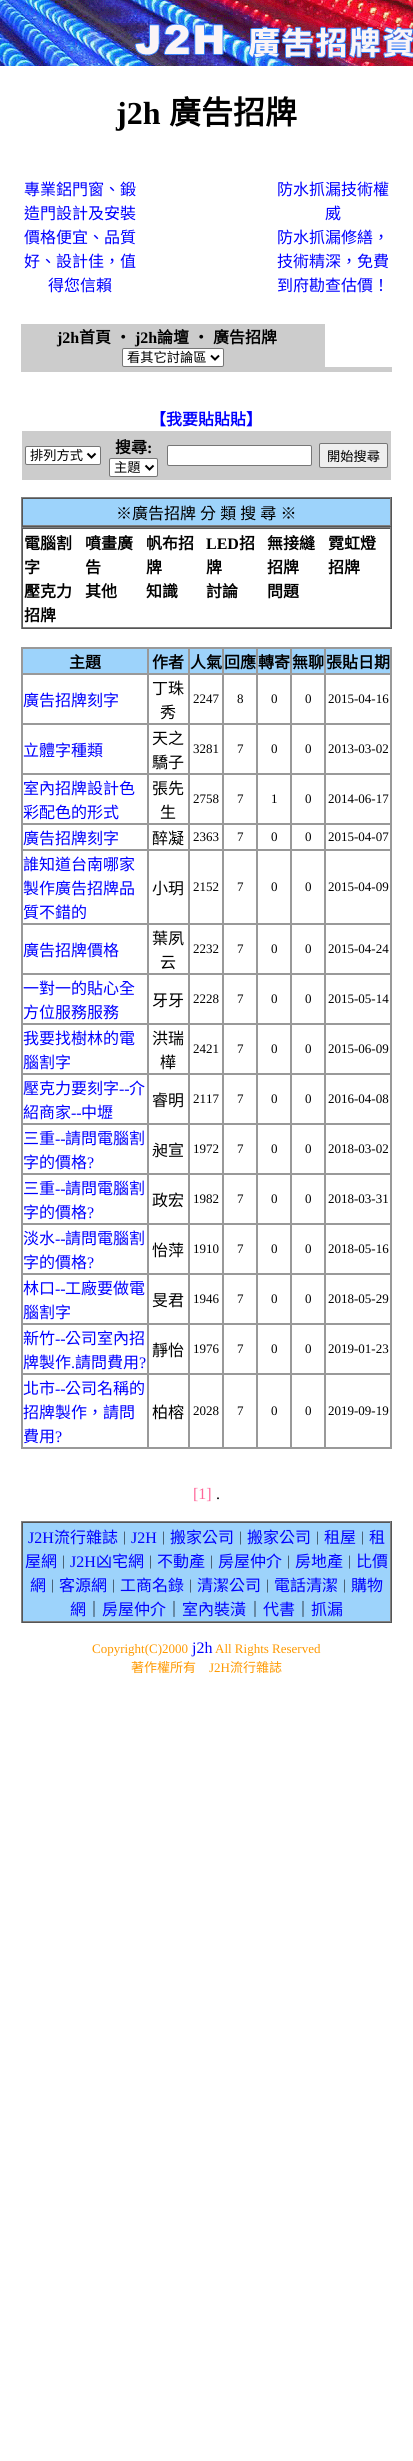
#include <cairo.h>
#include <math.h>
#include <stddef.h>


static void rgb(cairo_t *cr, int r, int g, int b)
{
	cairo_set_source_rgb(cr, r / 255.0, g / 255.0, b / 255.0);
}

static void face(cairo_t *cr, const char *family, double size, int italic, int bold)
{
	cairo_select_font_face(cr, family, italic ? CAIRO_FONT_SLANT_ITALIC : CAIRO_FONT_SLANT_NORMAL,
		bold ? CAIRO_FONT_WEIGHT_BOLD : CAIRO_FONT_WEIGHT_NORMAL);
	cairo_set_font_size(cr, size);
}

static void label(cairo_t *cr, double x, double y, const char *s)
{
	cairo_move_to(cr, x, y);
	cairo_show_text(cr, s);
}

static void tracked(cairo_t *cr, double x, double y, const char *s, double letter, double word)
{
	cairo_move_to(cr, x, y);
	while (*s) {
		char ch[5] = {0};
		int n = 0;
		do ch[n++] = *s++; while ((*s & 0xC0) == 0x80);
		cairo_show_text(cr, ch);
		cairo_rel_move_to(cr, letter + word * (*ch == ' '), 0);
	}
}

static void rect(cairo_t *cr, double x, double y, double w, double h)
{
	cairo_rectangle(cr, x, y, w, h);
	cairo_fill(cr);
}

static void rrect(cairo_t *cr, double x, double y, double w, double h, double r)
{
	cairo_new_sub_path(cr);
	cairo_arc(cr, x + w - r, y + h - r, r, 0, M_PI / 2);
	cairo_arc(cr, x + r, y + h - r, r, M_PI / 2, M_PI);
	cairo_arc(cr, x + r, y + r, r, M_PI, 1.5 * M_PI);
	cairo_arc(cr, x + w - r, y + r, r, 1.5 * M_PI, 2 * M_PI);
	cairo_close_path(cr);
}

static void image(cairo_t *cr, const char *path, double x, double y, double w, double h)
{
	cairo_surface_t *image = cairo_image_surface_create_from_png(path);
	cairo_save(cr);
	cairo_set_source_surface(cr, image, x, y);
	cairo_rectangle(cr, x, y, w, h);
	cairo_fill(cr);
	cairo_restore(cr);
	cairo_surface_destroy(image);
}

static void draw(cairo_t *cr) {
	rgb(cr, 255, 255, 255);
	cairo_paint(cr);
	image(cr, "image0.png", 0, 0, 413, 66);
	face(cr, "Liberation Serif", 32, 0, 1);
	rgb(cr, 0, 0, 0);
	label(cr, 116, 124, "j2h");
	face(cr, "Noto Sans CJK TC", 32, 0, 1);
	label(cr, 169, 124, "廣告招牌");
	face(cr, "Noto Sans CJK TC", 16, 0, 0);
	rgb(cr, 0, 0, 255);
	label(cr, 24, 195, "專業鋁門窗、鍛");
	label(cr, 24, 219, "造門設計及安裝");
	label(cr, 24, 243, "價格便宜、品質");
	label(cr, 24, 267, "好、設計佳，值");
	label(cr, 48, 291, "得您信賴");
	label(cr, 277, 195, "防水抓漏技術權");
	label(cr, 325, 219, "威");
	label(cr, 277, 243, "防水抓漏修繕，");
	label(cr, 277, 267, "技術精深，免費");
	label(cr, 277, 291, "到府勘查估價！");
	rgb(cr, 204, 204, 204);
	rect(cr, 21, 324, 304, 43);
	face(cr, "Liberation Serif", 16, 0, 1);
	rgb(cr, 0, 0, 0);
	label(cr, 57, 343, "j2h");
	face(cr, "Noto Sans CJK TC", 16, 0, 1);
	label(cr, 79, 343, "首頁");
	label(cr, 115, 343, "‧");
	face(cr, "Liberation Serif", 16, 0, 1);
	label(cr, 135, 343, "j2h");
	face(cr, "Noto Sans CJK TC", 16, 0, 1);
	label(cr, 157, 343, "論壇");
	label(cr, 193, 343, "‧");
	label(cr, 213, 343, "廣告招牌");
	rgb(cr, 255, 255, 255);
	rrect(cr, 122.5, 348.5, 101, 18, 1.5);
	cairo_fill_preserve(cr);
	rgb(cr, 118, 118, 118);
	cairo_set_line_width(cr, 1);
	cairo_stroke(cr);
	cairo_new_path(cr);
	cairo_move_to(cr, 211, 355.5);
	cairo_line_to(cr, 215, 359.5);
	cairo_line_to(cr, 219, 355.5);
	rgb(cr, 0, 0, 0);
	cairo_set_line_width(cr, 2);
	cairo_stroke(cr);
	face(cr, "Noto Sans CJK TC", 13.25, 0, 0);
	label(cr, 127, 362, "看其它討論區");
	rgb(cr, 204, 204, 204);
	rect(cr, 21, 367, 371, 5);
	face(cr, "Noto Sans CJK TC", 16, 0, 1);
	rgb(cr, 0, 0, 255);
	label(cr, 150, 425, "【我要貼貼貼】");
	rgb(cr, 204, 204, 204);
	rect(cr, 22, 431, 369, 49);
	rgb(cr, 255, 255, 255);
	rrect(cr, 25.5, 446.5, 75, 18, 1.5);
	cairo_fill_preserve(cr);
	rgb(cr, 118, 118, 118);
	cairo_set_line_width(cr, 1);
	cairo_stroke(cr);
	cairo_new_path(cr);
	cairo_move_to(cr, 87.5, 453.5);
	cairo_line_to(cr, 91.5, 457.5);
	cairo_line_to(cr, 95.5, 453.5);
	rgb(cr, 0, 0, 0);
	cairo_set_line_width(cr, 2);
	cairo_stroke(cr);
	face(cr, "Noto Sans CJK TC", 13.25, 0, 0);
	label(cr, 30, 460, "排列方式");
	face(cr, "Noto Sans CJK TC", 16, 0, 1);
	label(cr, 115, 453, "搜尋");
	face(cr, "Liberation Serif", 16, 0, 1);
	label(cr, 147, 453, ":");
	rgb(cr, 255, 255, 255);
	rrect(cr, 109.5, 458.5, 48, 18, 1.5);
	cairo_fill_preserve(cr);
	rgb(cr, 118, 118, 118);
	cairo_set_line_width(cr, 1);
	cairo_stroke(cr);
	cairo_new_path(cr);
	cairo_move_to(cr, 145.5, 465.5);
	cairo_line_to(cr, 149.5, 469.5);
	cairo_line_to(cr, 153.5, 465.5);
	rgb(cr, 0, 0, 0);
	cairo_set_line_width(cr, 2);
	cairo_stroke(cr);
	face(cr, "Noto Sans CJK TC", 13.25, 0, 0);
	label(cr, 114, 472, "主題");
	rgb(cr, 255, 255, 255);
	rrect(cr, 167.5, 445.5, 144, 20, 1.5);
	cairo_fill_preserve(cr);
	rgb(cr, 118, 118, 118);
	cairo_set_line_width(cr, 1);
	cairo_stroke(cr);
	rgb(cr, 239, 239, 239);
	rrect(cr, 319.5, 443.5, 68, 24, 1.5);
	cairo_fill_preserve(cr);
	rgb(cr, 118, 118, 118);
	cairo_stroke(cr);
	rgb(cr, 0, 0, 0);
	label(cr, 327, 461, "開始搜尋");
	rgb(cr, 128, 128, 128);
	rect(cr, 21, 497, 371, 1);
	rgb(cr, 85, 85, 85);
	rect(cr, 391, 497, 1, 30);
	rect(cr, 21, 526, 371, 1);
	rgb(cr, 128, 128, 128);
	rect(cr, 21, 497, 1, 30);
	rgb(cr, 157, 211, 251);
	rect(cr, 23, 499, 367, 26);
	rgb(cr, 85, 85, 85);
	rect(cr, 22, 498, 369, 1);
	rgb(cr, 128, 128, 128);
	rect(cr, 390, 498, 1, 28);
	rect(cr, 22, 525, 369, 1);
	rgb(cr, 85, 85, 85);
	rect(cr, 22, 498, 1, 28);
	face(cr, "Noto Sans CJK TC", 16, 0, 0);
	rgb(cr, 0, 0, 0);
	tracked(cr, 116, 519, "※廣告招牌 分 類 搜 尋 ※", 0, 0.5);
	rgb(cr, 128, 128, 128);
	rect(cr, 21, 527, 371, 1);
	rgb(cr, 85, 85, 85);
	rect(cr, 391, 527, 1, 102);
	rect(cr, 21, 628, 371, 1);
	rgb(cr, 128, 128, 128);
	rect(cr, 21, 527, 1, 102);
	rgb(cr, 85, 85, 85);
	rect(cr, 22, 528, 369, 1);
	rgb(cr, 128, 128, 128);
	rect(cr, 390, 528, 1, 100);
	rect(cr, 22, 627, 369, 1);
	rgb(cr, 85, 85, 85);
	rect(cr, 22, 528, 1, 100);
	face(cr, "Noto Sans CJK TC", 16, 0, 1);
	rgb(cr, 0, 0, 0);
	label(cr, 24, 549, "電腦割");
	label(cr, 24, 573, "字");
	label(cr, 85, 549, "噴畫廣");
	label(cr, 85, 573, "告");
	label(cr, 146, 549, "帆布招");
	label(cr, 146, 573, "牌");
	face(cr, "Liberation Serif", 16, 0, 1);
	label(cr, 206, 549, "LED");
	face(cr, "Noto Sans CJK TC", 16, 0, 1);
	label(cr, 239, 549, "招");
	label(cr, 206, 573, "牌");
	label(cr, 267, 549, "無接縫");
	label(cr, 267, 573, "招牌");
	label(cr, 328, 549, "霓虹燈");
	label(cr, 328, 573, "招牌");
	label(cr, 24, 597, "壓克力");
	label(cr, 24, 621, "招牌");
	label(cr, 85, 597, "其他");
	label(cr, 146, 597, "知識");
	label(cr, 206, 597, "討論");
	label(cr, 267, 597, "問題");
	cairo_rectangle(cr, 21.5, 647.5, 370, 801);
	rgb(cr, 153, 153, 153);
	cairo_stroke(cr);
	rgb(cr, 157, 211, 251);
	rect(cr, 23, 649, 367, 24);
	cairo_rectangle(cr, 22.5, 648.5, 125, 25);
	rgb(cr, 153, 153, 153);
	cairo_stroke(cr);
	rgb(cr, 0, 0, 0);
	label(cr, 69, 668, "主題");
	cairo_rectangle(cr, 148.5, 648.5, 40, 25);
	rgb(cr, 153, 153, 153);
	cairo_stroke(cr);
	rgb(cr, 0, 0, 0);
	label(cr, 152, 668, "作者");
	cairo_rectangle(cr, 189.5, 648.5, 33, 25);
	rgb(cr, 153, 153, 153);
	cairo_stroke(cr);
	rgb(cr, 0, 0, 0);
	label(cr, 190, 668, "人氣");
	cairo_rectangle(cr, 223.5, 648.5, 33, 25);
	rgb(cr, 153, 153, 153);
	cairo_stroke(cr);
	rgb(cr, 0, 0, 0);
	label(cr, 224, 668, "回應");
	cairo_rectangle(cr, 257.5, 648.5, 33, 25);
	rgb(cr, 153, 153, 153);
	cairo_stroke(cr);
	rgb(cr, 0, 0, 0);
	label(cr, 258, 668, "轉寄");
	cairo_rectangle(cr, 291.5, 648.5, 33, 25);
	rgb(cr, 153, 153, 153);
	cairo_stroke(cr);
	rgb(cr, 0, 0, 0);
	label(cr, 292, 668, "無聊");
	cairo_rectangle(cr, 325.5, 648.5, 65, 25);
	rgb(cr, 153, 153, 153);
	cairo_stroke(cr);
	rgb(cr, 0, 0, 0);
	label(cr, 326, 668, "張貼日期");
	cairo_rectangle(cr, 22.5, 674.5, 125, 49);
	rgb(cr, 153, 153, 153);
	cairo_stroke(cr);
	face(cr, "Noto Sans CJK TC", 16, 0, 0);
	rgb(cr, 0, 0, 255);
	label(cr, 23, 706, "廣告招牌刻字");
	cairo_rectangle(cr, 148.5, 674.5, 40, 49);
	rgb(cr, 153, 153, 153);
	cairo_stroke(cr);
	rgb(cr, 0, 0, 0);
	label(cr, 152, 694, "丁珠");
	label(cr, 160, 718, "秀");
	cairo_rectangle(cr, 189.5, 674.5, 33, 49);
	rgb(cr, 153, 153, 153);
	cairo_stroke(cr);
	face(cr, "Liberation Serif", 13, 0, 0);
	rgb(cr, 0, 0, 0);
	label(cr, 193, 703, "2247");
	cairo_rectangle(cr, 223.5, 674.5, 33, 49);
	rgb(cr, 153, 153, 153);
	cairo_stroke(cr);
	rgb(cr, 0, 0, 0);
	label(cr, 237, 703, "8");
	cairo_rectangle(cr, 257.5, 674.5, 33, 49);
	rgb(cr, 153, 153, 153);
	cairo_stroke(cr);
	rgb(cr, 0, 0, 0);
	label(cr, 271, 703, "0");
	cairo_rectangle(cr, 291.5, 674.5, 33, 49);
	rgb(cr, 153, 153, 153);
	cairo_stroke(cr);
	rgb(cr, 0, 0, 0);
	label(cr, 305, 703, "0");
	cairo_rectangle(cr, 325.5, 674.5, 65, 49);
	rgb(cr, 153, 153, 153);
	cairo_stroke(cr);
	rgb(cr, 0, 0, 0);
	label(cr, 328, 703, "2015-04-16");
	cairo_rectangle(cr, 22.5, 724.5, 125, 49);
	rgb(cr, 153, 153, 153);
	cairo_stroke(cr);
	face(cr, "Noto Sans CJK TC", 16, 0, 0);
	rgb(cr, 0, 0, 255);
	label(cr, 23, 756, "立體字種類");
	cairo_rectangle(cr, 148.5, 724.5, 40, 49);
	rgb(cr, 153, 153, 153);
	cairo_stroke(cr);
	rgb(cr, 0, 0, 0);
	label(cr, 152, 744, "天之");
	label(cr, 152, 768, "驕子");
	cairo_rectangle(cr, 189.5, 724.5, 33, 49);
	rgb(cr, 153, 153, 153);
	cairo_stroke(cr);
	face(cr, "Liberation Serif", 13, 0, 0);
	rgb(cr, 0, 0, 0);
	label(cr, 193, 753, "3281");
	cairo_rectangle(cr, 223.5, 724.5, 33, 49);
	rgb(cr, 153, 153, 153);
	cairo_stroke(cr);
	rgb(cr, 0, 0, 0);
	label(cr, 237, 753, "7");
	cairo_rectangle(cr, 257.5, 724.5, 33, 49);
	rgb(cr, 153, 153, 153);
	cairo_stroke(cr);
	rgb(cr, 0, 0, 0);
	label(cr, 271, 753, "0");
	cairo_rectangle(cr, 291.5, 724.5, 33, 49);
	rgb(cr, 153, 153, 153);
	cairo_stroke(cr);
	rgb(cr, 0, 0, 0);
	label(cr, 305, 753, "0");
	cairo_rectangle(cr, 325.5, 724.5, 65, 49);
	rgb(cr, 153, 153, 153);
	cairo_stroke(cr);
	rgb(cr, 0, 0, 0);
	label(cr, 328, 753, "2013-03-02");
	cairo_rectangle(cr, 22.5, 774.5, 125, 49);
	rgb(cr, 153, 153, 153);
	cairo_stroke(cr);
	face(cr, "Noto Sans CJK TC", 16, 0, 0);
	rgb(cr, 0, 0, 255);
	label(cr, 23, 794, "室內招牌設計色");
	label(cr, 23, 818, "彩配色的形式");
	cairo_rectangle(cr, 148.5, 774.5, 40, 49);
	rgb(cr, 153, 153, 153);
	cairo_stroke(cr);
	rgb(cr, 0, 0, 0);
	label(cr, 152, 794, "張先");
	label(cr, 160, 818, "生");
	cairo_rectangle(cr, 189.5, 774.5, 33, 49);
	rgb(cr, 153, 153, 153);
	cairo_stroke(cr);
	face(cr, "Liberation Serif", 13, 0, 0);
	rgb(cr, 0, 0, 0);
	label(cr, 193, 803, "2758");
	cairo_rectangle(cr, 223.5, 774.5, 33, 49);
	rgb(cr, 153, 153, 153);
	cairo_stroke(cr);
	rgb(cr, 0, 0, 0);
	label(cr, 237, 803, "7");
	cairo_rectangle(cr, 257.5, 774.5, 33, 49);
	rgb(cr, 153, 153, 153);
	cairo_stroke(cr);
	rgb(cr, 0, 0, 0);
	label(cr, 271, 803, "1");
	cairo_rectangle(cr, 291.5, 774.5, 33, 49);
	rgb(cr, 153, 153, 153);
	cairo_stroke(cr);
	rgb(cr, 0, 0, 0);
	label(cr, 305, 803, "0");
	cairo_rectangle(cr, 325.5, 774.5, 65, 49);
	rgb(cr, 153, 153, 153);
	cairo_stroke(cr);
	rgb(cr, 0, 0, 0);
	label(cr, 328, 803, "2014-06-17");
	cairo_rectangle(cr, 22.5, 824.5, 125, 25);
	rgb(cr, 153, 153, 153);
	cairo_stroke(cr);
	face(cr, "Noto Sans CJK TC", 16, 0, 0);
	rgb(cr, 0, 0, 255);
	label(cr, 23, 844, "廣告招牌刻字");
	cairo_rectangle(cr, 148.5, 824.5, 40, 25);
	rgb(cr, 153, 153, 153);
	cairo_stroke(cr);
	rgb(cr, 0, 0, 0);
	label(cr, 152, 844, "醉凝");
	cairo_rectangle(cr, 189.5, 824.5, 33, 25);
	rgb(cr, 153, 153, 153);
	cairo_stroke(cr);
	face(cr, "Liberation Serif", 13, 0, 0);
	rgb(cr, 0, 0, 0);
	label(cr, 193, 841, "2363");
	cairo_rectangle(cr, 223.5, 824.5, 33, 25);
	rgb(cr, 153, 153, 153);
	cairo_stroke(cr);
	rgb(cr, 0, 0, 0);
	label(cr, 237, 841, "7");
	cairo_rectangle(cr, 257.5, 824.5, 33, 25);
	rgb(cr, 153, 153, 153);
	cairo_stroke(cr);
	rgb(cr, 0, 0, 0);
	label(cr, 271, 841, "0");
	cairo_rectangle(cr, 291.5, 824.5, 33, 25);
	rgb(cr, 153, 153, 153);
	cairo_stroke(cr);
	rgb(cr, 0, 0, 0);
	label(cr, 305, 841, "0");
	cairo_rectangle(cr, 325.5, 824.5, 65, 25);
	rgb(cr, 153, 153, 153);
	cairo_stroke(cr);
	rgb(cr, 0, 0, 0);
	label(cr, 328, 841, "2015-04-07");
	cairo_rectangle(cr, 22.5, 850.5, 125, 73);
	rgb(cr, 153, 153, 153);
	cairo_stroke(cr);
	face(cr, "Noto Sans CJK TC", 16, 0, 0);
	rgb(cr, 0, 0, 255);
	label(cr, 23, 870, "誰知道台南哪家");
	label(cr, 23, 894, "製作廣告招牌品");
	label(cr, 23, 918, "質不錯的");
	cairo_rectangle(cr, 148.5, 850.5, 40, 73);
	rgb(cr, 153, 153, 153);
	cairo_stroke(cr);
	rgb(cr, 0, 0, 0);
	label(cr, 152, 894, "小玥");
	cairo_rectangle(cr, 189.5, 850.5, 33, 73);
	rgb(cr, 153, 153, 153);
	cairo_stroke(cr);
	face(cr, "Liberation Serif", 13, 0, 0);
	rgb(cr, 0, 0, 0);
	label(cr, 193, 891, "2152");
	cairo_rectangle(cr, 223.5, 850.5, 33, 73);
	rgb(cr, 153, 153, 153);
	cairo_stroke(cr);
	rgb(cr, 0, 0, 0);
	label(cr, 237, 891, "7");
	cairo_rectangle(cr, 257.5, 850.5, 33, 73);
	rgb(cr, 153, 153, 153);
	cairo_stroke(cr);
	rgb(cr, 0, 0, 0);
	label(cr, 271, 891, "0");
	cairo_rectangle(cr, 291.5, 850.5, 33, 73);
	rgb(cr, 153, 153, 153);
	cairo_stroke(cr);
	rgb(cr, 0, 0, 0);
	label(cr, 305, 891, "0");
	cairo_rectangle(cr, 325.5, 850.5, 65, 73);
	rgb(cr, 153, 153, 153);
	cairo_stroke(cr);
	rgb(cr, 0, 0, 0);
	label(cr, 328, 891, "2015-04-09");
	cairo_rectangle(cr, 22.5, 924.5, 125, 49);
	rgb(cr, 153, 153, 153);
	cairo_stroke(cr);
	face(cr, "Noto Sans CJK TC", 16, 0, 0);
	rgb(cr, 0, 0, 255);
	label(cr, 23, 956, "廣告招牌價格");
	cairo_rectangle(cr, 148.5, 924.5, 40, 49);
	rgb(cr, 153, 153, 153);
	cairo_stroke(cr);
	rgb(cr, 0, 0, 0);
	label(cr, 152, 944, "葉夙");
	label(cr, 160, 968, "云");
	cairo_rectangle(cr, 189.5, 924.5, 33, 49);
	rgb(cr, 153, 153, 153);
	cairo_stroke(cr);
	face(cr, "Liberation Serif", 13, 0, 0);
	rgb(cr, 0, 0, 0);
	label(cr, 193, 953, "2232");
	cairo_rectangle(cr, 223.5, 924.5, 33, 49);
	rgb(cr, 153, 153, 153);
	cairo_stroke(cr);
	rgb(cr, 0, 0, 0);
	label(cr, 237, 953, "7");
	cairo_rectangle(cr, 257.5, 924.5, 33, 49);
	rgb(cr, 153, 153, 153);
	cairo_stroke(cr);
	rgb(cr, 0, 0, 0);
	label(cr, 271, 953, "0");
	cairo_rectangle(cr, 291.5, 924.5, 33, 49);
	rgb(cr, 153, 153, 153);
	cairo_stroke(cr);
	rgb(cr, 0, 0, 0);
	label(cr, 305, 953, "0");
	cairo_rectangle(cr, 325.5, 924.5, 65, 49);
	rgb(cr, 153, 153, 153);
	cairo_stroke(cr);
	rgb(cr, 0, 0, 0);
	label(cr, 328, 953, "2015-04-24");
	cairo_rectangle(cr, 22.5, 974.5, 125, 49);
	rgb(cr, 153, 153, 153);
	cairo_stroke(cr);
	face(cr, "Noto Sans CJK TC", 16, 0, 0);
	rgb(cr, 0, 0, 255);
	label(cr, 23, 994, "一對一的貼心全");
	label(cr, 23, 1018, "方位服務服務");
	cairo_rectangle(cr, 148.5, 974.5, 40, 49);
	rgb(cr, 153, 153, 153);
	cairo_stroke(cr);
	rgb(cr, 0, 0, 0);
	label(cr, 152, 1006, "牙牙");
	cairo_rectangle(cr, 189.5, 974.5, 33, 49);
	rgb(cr, 153, 153, 153);
	cairo_stroke(cr);
	face(cr, "Liberation Serif", 13, 0, 0);
	rgb(cr, 0, 0, 0);
	label(cr, 193, 1003, "2228");
	cairo_rectangle(cr, 223.5, 974.5, 33, 49);
	rgb(cr, 153, 153, 153);
	cairo_stroke(cr);
	rgb(cr, 0, 0, 0);
	label(cr, 237, 1003, "7");
	cairo_rectangle(cr, 257.5, 974.5, 33, 49);
	rgb(cr, 153, 153, 153);
	cairo_stroke(cr);
	rgb(cr, 0, 0, 0);
	label(cr, 271, 1003, "0");
	cairo_rectangle(cr, 291.5, 974.5, 33, 49);
	rgb(cr, 153, 153, 153);
	cairo_stroke(cr);
	rgb(cr, 0, 0, 0);
	label(cr, 305, 1003, "0");
	cairo_rectangle(cr, 325.5, 974.5, 65, 49);
	rgb(cr, 153, 153, 153);
	cairo_stroke(cr);
	rgb(cr, 0, 0, 0);
	label(cr, 328, 1003, "2015-05-14");
	cairo_rectangle(cr, 22.5, 1024.5, 125, 49);
	rgb(cr, 153, 153, 153);
	cairo_stroke(cr);
	face(cr, "Noto Sans CJK TC", 16, 0, 0);
	rgb(cr, 0, 0, 255);
	label(cr, 23, 1044, "我要找樹林的電");
	label(cr, 23, 1068, "腦割字");
	cairo_rectangle(cr, 148.5, 1024.5, 40, 49);
	rgb(cr, 153, 153, 153);
	cairo_stroke(cr);
	rgb(cr, 0, 0, 0);
	label(cr, 152, 1044, "洪瑞");
	label(cr, 160, 1068, "樺");
	cairo_rectangle(cr, 189.5, 1024.5, 33, 49);
	rgb(cr, 153, 153, 153);
	cairo_stroke(cr);
	face(cr, "Liberation Serif", 13, 0, 0);
	rgb(cr, 0, 0, 0);
	label(cr, 193, 1053, "2421");
	cairo_rectangle(cr, 223.5, 1024.5, 33, 49);
	rgb(cr, 153, 153, 153);
	cairo_stroke(cr);
	rgb(cr, 0, 0, 0);
	label(cr, 237, 1053, "7");
	cairo_rectangle(cr, 257.5, 1024.5, 33, 49);
	rgb(cr, 153, 153, 153);
	cairo_stroke(cr);
	rgb(cr, 0, 0, 0);
	label(cr, 271, 1053, "0");
	cairo_rectangle(cr, 291.5, 1024.5, 33, 49);
	rgb(cr, 153, 153, 153);
	cairo_stroke(cr);
	rgb(cr, 0, 0, 0);
	label(cr, 305, 1053, "0");
	cairo_rectangle(cr, 325.5, 1024.5, 65, 49);
	rgb(cr, 153, 153, 153);
	cairo_stroke(cr);
	rgb(cr, 0, 0, 0);
	label(cr, 328, 1053, "2015-06-09");
	cairo_rectangle(cr, 22.5, 1074.5, 125, 49);
	rgb(cr, 153, 153, 153);
	cairo_stroke(cr);
	face(cr, "Noto Sans CJK TC", 16, 0, 0);
	rgb(cr, 0, 0, 255);
	label(cr, 23, 1094, "壓克力要刻字");
	face(cr, "Liberation Serif", 16, 0, 0);
	label(cr, 119, 1094, "--");
	face(cr, "Noto Sans CJK TC", 16, 0, 0);
	label(cr, 129, 1094, "介");
	label(cr, 23, 1118, "紹商家");
	face(cr, "Liberation Serif", 16, 0, 0);
	label(cr, 71, 1118, "--");
	face(cr, "Noto Sans CJK TC", 16, 0, 0);
	label(cr, 81, 1118, "中壢");
	cairo_rectangle(cr, 148.5, 1074.5, 40, 49);
	rgb(cr, 153, 153, 153);
	cairo_stroke(cr);
	rgb(cr, 0, 0, 0);
	label(cr, 152, 1106, "睿明");
	cairo_rectangle(cr, 189.5, 1074.5, 33, 49);
	rgb(cr, 153, 153, 153);
	cairo_stroke(cr);
	face(cr, "Liberation Serif", 13, 0, 0);
	rgb(cr, 0, 0, 0);
	label(cr, 193, 1103, "2117");
	cairo_rectangle(cr, 223.5, 1074.5, 33, 49);
	rgb(cr, 153, 153, 153);
	cairo_stroke(cr);
	rgb(cr, 0, 0, 0);
	label(cr, 237, 1103, "7");
	cairo_rectangle(cr, 257.5, 1074.5, 33, 49);
	rgb(cr, 153, 153, 153);
	cairo_stroke(cr);
	rgb(cr, 0, 0, 0);
	label(cr, 271, 1103, "0");
	cairo_rectangle(cr, 291.5, 1074.5, 33, 49);
	rgb(cr, 153, 153, 153);
	cairo_stroke(cr);
	rgb(cr, 0, 0, 0);
	label(cr, 305, 1103, "0");
	cairo_rectangle(cr, 325.5, 1074.5, 65, 49);
	rgb(cr, 153, 153, 153);
	cairo_stroke(cr);
	rgb(cr, 0, 0, 0);
	label(cr, 328, 1103, "2016-04-08");
	cairo_rectangle(cr, 22.5, 1124.5, 125, 49);
	rgb(cr, 153, 153, 153);
	cairo_stroke(cr);
	face(cr, "Noto Sans CJK TC", 16, 0, 0);
	rgb(cr, 0, 0, 255);
	label(cr, 23, 1144, "三重");
	face(cr, "Liberation Serif", 16, 0, 0);
	label(cr, 55, 1144, "--");
	face(cr, "Noto Sans CJK TC", 16, 0, 0);
	label(cr, 65, 1144, "請問電腦割");
	label(cr, 23, 1168, "字的價格");
	face(cr, "Liberation Serif", 16, 0, 0);
	label(cr, 87, 1168, "?");
	cairo_rectangle(cr, 148.5, 1124.5, 40, 49);
	rgb(cr, 153, 153, 153);
	cairo_stroke(cr);
	face(cr, "Noto Sans CJK TC", 16, 0, 0);
	rgb(cr, 0, 0, 0);
	label(cr, 152, 1156, "昶宣");
	cairo_rectangle(cr, 189.5, 1124.5, 33, 49);
	rgb(cr, 153, 153, 153);
	cairo_stroke(cr);
	face(cr, "Liberation Serif", 13, 0, 0);
	rgb(cr, 0, 0, 0);
	label(cr, 193, 1153, "1972");
	cairo_rectangle(cr, 223.5, 1124.5, 33, 49);
	rgb(cr, 153, 153, 153);
	cairo_stroke(cr);
	rgb(cr, 0, 0, 0);
	label(cr, 237, 1153, "7");
	cairo_rectangle(cr, 257.5, 1124.5, 33, 49);
	rgb(cr, 153, 153, 153);
	cairo_stroke(cr);
	rgb(cr, 0, 0, 0);
	label(cr, 271, 1153, "0");
	cairo_rectangle(cr, 291.5, 1124.5, 33, 49);
	rgb(cr, 153, 153, 153);
	cairo_stroke(cr);
	rgb(cr, 0, 0, 0);
	label(cr, 305, 1153, "0");
	cairo_rectangle(cr, 325.5, 1124.5, 65, 49);
	rgb(cr, 153, 153, 153);
	cairo_stroke(cr);
	rgb(cr, 0, 0, 0);
	label(cr, 328, 1153, "2018-03-02");
	cairo_rectangle(cr, 22.5, 1174.5, 125, 49);
	rgb(cr, 153, 153, 153);
	cairo_stroke(cr);
	face(cr, "Noto Sans CJK TC", 16, 0, 0);
	rgb(cr, 0, 0, 255);
	label(cr, 23, 1194, "三重");
	face(cr, "Liberation Serif", 16, 0, 0);
	label(cr, 55, 1194, "--");
	face(cr, "Noto Sans CJK TC", 16, 0, 0);
	label(cr, 65, 1194, "請問電腦割");
	label(cr, 23, 1218, "字的價格");
	face(cr, "Liberation Serif", 16, 0, 0);
	label(cr, 87, 1218, "?");
	cairo_rectangle(cr, 148.5, 1174.5, 40, 49);
	rgb(cr, 153, 153, 153);
	cairo_stroke(cr);
	face(cr, "Noto Sans CJK TC", 16, 0, 0);
	rgb(cr, 0, 0, 0);
	label(cr, 152, 1206, "政宏");
	cairo_rectangle(cr, 189.5, 1174.5, 33, 49);
	rgb(cr, 153, 153, 153);
	cairo_stroke(cr);
	face(cr, "Liberation Serif", 13, 0, 0);
	rgb(cr, 0, 0, 0);
	label(cr, 193, 1203, "1982");
	cairo_rectangle(cr, 223.5, 1174.5, 33, 49);
	rgb(cr, 153, 153, 153);
	cairo_stroke(cr);
	rgb(cr, 0, 0, 0);
	label(cr, 237, 1203, "7");
	cairo_rectangle(cr, 257.5, 1174.5, 33, 49);
	rgb(cr, 153, 153, 153);
	cairo_stroke(cr);
	rgb(cr, 0, 0, 0);
	label(cr, 271, 1203, "0");
	cairo_rectangle(cr, 291.5, 1174.5, 33, 49);
	rgb(cr, 153, 153, 153);
	cairo_stroke(cr);
	rgb(cr, 0, 0, 0);
	label(cr, 305, 1203, "0");
	cairo_rectangle(cr, 325.5, 1174.5, 65, 49);
	rgb(cr, 153, 153, 153);
	cairo_stroke(cr);
	rgb(cr, 0, 0, 0);
	label(cr, 328, 1203, "2018-03-31");
	cairo_rectangle(cr, 22.5, 1224.5, 125, 49);
	rgb(cr, 153, 153, 153);
	cairo_stroke(cr);
	face(cr, "Noto Sans CJK TC", 16, 0, 0);
	rgb(cr, 0, 0, 255);
	label(cr, 23, 1244, "淡水");
	face(cr, "Liberation Serif", 16, 0, 0);
	label(cr, 55, 1244, "--");
	face(cr, "Noto Sans CJK TC", 16, 0, 0);
	label(cr, 65, 1244, "請問電腦割");
	label(cr, 23, 1268, "字的價格");
	face(cr, "Liberation Serif", 16, 0, 0);
	label(cr, 87, 1268, "?");
	cairo_rectangle(cr, 148.5, 1224.5, 40, 49);
	rgb(cr, 153, 153, 153);
	cairo_stroke(cr);
	face(cr, "Noto Sans CJK TC", 16, 0, 0);
	rgb(cr, 0, 0, 0);
	label(cr, 152, 1256, "怡萍");
	cairo_rectangle(cr, 189.5, 1224.5, 33, 49);
	rgb(cr, 153, 153, 153);
	cairo_stroke(cr);
	face(cr, "Liberation Serif", 13, 0, 0);
	rgb(cr, 0, 0, 0);
	label(cr, 193, 1253, "1910");
	cairo_rectangle(cr, 223.5, 1224.5, 33, 49);
	rgb(cr, 153, 153, 153);
	cairo_stroke(cr);
	rgb(cr, 0, 0, 0);
	label(cr, 237, 1253, "7");
	cairo_rectangle(cr, 257.5, 1224.5, 33, 49);
	rgb(cr, 153, 153, 153);
	cairo_stroke(cr);
	rgb(cr, 0, 0, 0);
	label(cr, 271, 1253, "0");
	cairo_rectangle(cr, 291.5, 1224.5, 33, 49);
	rgb(cr, 153, 153, 153);
	cairo_stroke(cr);
	rgb(cr, 0, 0, 0);
	label(cr, 305, 1253, "0");
	cairo_rectangle(cr, 325.5, 1224.5, 65, 49);
	rgb(cr, 153, 153, 153);
	cairo_stroke(cr);
	rgb(cr, 0, 0, 0);
	label(cr, 328, 1253, "2018-05-16");
	cairo_rectangle(cr, 22.5, 1274.5, 125, 49);
	rgb(cr, 153, 153, 153);
	cairo_stroke(cr);
	face(cr, "Noto Sans CJK TC", 16, 0, 0);
	rgb(cr, 0, 0, 255);
	label(cr, 23, 1294, "林口");
	face(cr, "Liberation Serif", 16, 0, 0);
	label(cr, 55, 1294, "--");
	face(cr, "Noto Sans CJK TC", 16, 0, 0);
	label(cr, 65, 1294, "工廠要做電");
	label(cr, 23, 1318, "腦割字");
	cairo_rectangle(cr, 148.5, 1274.5, 40, 49);
	rgb(cr, 153, 153, 153);
	cairo_stroke(cr);
	rgb(cr, 0, 0, 0);
	label(cr, 152, 1306, "旻君");
	cairo_rectangle(cr, 189.5, 1274.5, 33, 49);
	rgb(cr, 153, 153, 153);
	cairo_stroke(cr);
	face(cr, "Liberation Serif", 13, 0, 0);
	rgb(cr, 0, 0, 0);
	label(cr, 193, 1303, "1946");
	cairo_rectangle(cr, 223.5, 1274.5, 33, 49);
	rgb(cr, 153, 153, 153);
	cairo_stroke(cr);
	rgb(cr, 0, 0, 0);
	label(cr, 237, 1303, "7");
	cairo_rectangle(cr, 257.5, 1274.5, 33, 49);
	rgb(cr, 153, 153, 153);
	cairo_stroke(cr);
	rgb(cr, 0, 0, 0);
	label(cr, 271, 1303, "0");
	cairo_rectangle(cr, 291.5, 1274.5, 33, 49);
	rgb(cr, 153, 153, 153);
	cairo_stroke(cr);
	rgb(cr, 0, 0, 0);
	label(cr, 305, 1303, "0");
	cairo_rectangle(cr, 325.5, 1274.5, 65, 49);
	rgb(cr, 153, 153, 153);
	cairo_stroke(cr);
	rgb(cr, 0, 0, 0);
	label(cr, 328, 1303, "2018-05-29");
	cairo_rectangle(cr, 22.5, 1324.5, 125, 49);
	rgb(cr, 153, 153, 153);
	cairo_stroke(cr);
	face(cr, "Noto Sans CJK TC", 16, 0, 0);
	rgb(cr, 0, 0, 255);
	label(cr, 23, 1344, "新竹");
	face(cr, "Liberation Serif", 16, 0, 0);
	label(cr, 55, 1344, "--");
	face(cr, "Noto Sans CJK TC", 16, 0, 0);
	label(cr, 65, 1344, "公司室內招");
	label(cr, 23, 1368, "牌製作");
	face(cr, "Liberation Serif", 16, 0, 0);
	label(cr, 71, 1368, ".");
	face(cr, "Noto Sans CJK TC", 16, 0, 0);
	label(cr, 75, 1368, "請問費用");
	face(cr, "Liberation Serif", 16, 0, 0);
	label(cr, 139, 1368, "?");
	cairo_rectangle(cr, 148.5, 1324.5, 40, 49);
	rgb(cr, 153, 153, 153);
	cairo_stroke(cr);
	face(cr, "Noto Sans CJK TC", 16, 0, 0);
	rgb(cr, 0, 0, 0);
	label(cr, 152, 1356, "靜怡");
	cairo_rectangle(cr, 189.5, 1324.5, 33, 49);
	rgb(cr, 153, 153, 153);
	cairo_stroke(cr);
	face(cr, "Liberation Serif", 13, 0, 0);
	rgb(cr, 0, 0, 0);
	label(cr, 193, 1353, "1976");
	cairo_rectangle(cr, 223.5, 1324.5, 33, 49);
	rgb(cr, 153, 153, 153);
	cairo_stroke(cr);
	rgb(cr, 0, 0, 0);
	label(cr, 237, 1353, "7");
	cairo_rectangle(cr, 257.5, 1324.5, 33, 49);
	rgb(cr, 153, 153, 153);
	cairo_stroke(cr);
	rgb(cr, 0, 0, 0);
	label(cr, 271, 1353, "0");
	cairo_rectangle(cr, 291.5, 1324.5, 33, 49);
	rgb(cr, 153, 153, 153);
	cairo_stroke(cr);
	rgb(cr, 0, 0, 0);
	label(cr, 305, 1353, "0");
	cairo_rectangle(cr, 325.5, 1324.5, 65, 49);
	rgb(cr, 153, 153, 153);
	cairo_stroke(cr);
	rgb(cr, 0, 0, 0);
	label(cr, 328, 1353, "2019-01-23");
	cairo_rectangle(cr, 22.5, 1374.5, 125, 73);
	rgb(cr, 153, 153, 153);
	cairo_stroke(cr);
	face(cr, "Noto Sans CJK TC", 16, 0, 0);
	rgb(cr, 0, 0, 255);
	label(cr, 23, 1394, "北市");
	face(cr, "Liberation Serif", 16, 0, 0);
	label(cr, 55, 1394, "--");
	face(cr, "Noto Sans CJK TC", 16, 0, 0);
	label(cr, 65, 1394, "公司名稱的");
	label(cr, 23, 1418, "招牌製作，請問");
	label(cr, 23, 1442, "費用");
	face(cr, "Liberation Serif", 16, 0, 0);
	label(cr, 55, 1442, "?");
	cairo_rectangle(cr, 148.5, 1374.5, 40, 73);
	rgb(cr, 153, 153, 153);
	cairo_stroke(cr);
	face(cr, "Noto Sans CJK TC", 16, 0, 0);
	rgb(cr, 0, 0, 0);
	label(cr, 152, 1418, "柏榕");
	cairo_rectangle(cr, 189.5, 1374.5, 33, 73);
	rgb(cr, 153, 153, 153);
	cairo_stroke(cr);
	face(cr, "Liberation Serif", 13, 0, 0);
	rgb(cr, 0, 0, 0);
	label(cr, 193, 1415, "2028");
	cairo_rectangle(cr, 223.5, 1374.5, 33, 73);
	rgb(cr, 153, 153, 153);
	cairo_stroke(cr);
	rgb(cr, 0, 0, 0);
	label(cr, 237, 1415, "7");
	cairo_rectangle(cr, 257.5, 1374.5, 33, 73);
	rgb(cr, 153, 153, 153);
	cairo_stroke(cr);
	rgb(cr, 0, 0, 0);
	label(cr, 271, 1415, "0");
	cairo_rectangle(cr, 291.5, 1374.5, 33, 73);
	rgb(cr, 153, 153, 153);
	cairo_stroke(cr);
	rgb(cr, 0, 0, 0);
	label(cr, 305, 1415, "0");
	cairo_rectangle(cr, 325.5, 1374.5, 65, 73);
	rgb(cr, 153, 153, 153);
	cairo_stroke(cr);
	rgb(cr, 0, 0, 0);
	label(cr, 328, 1415, "2019-09-19");
	face(cr, "Liberation Serif", 16, 0, 0);
	rgb(cr, 255, 102, 153);
	label(cr, 193, 1499, "[1]");
	rgb(cr, 0, 0, 0);
	label(cr, 216, 1499, ".");
	rgb(cr, 128, 128, 128);
	rect(cr, 21, 1521, 371, 1);
	rgb(cr, 85, 85, 85);
	rect(cr, 391, 1521, 1, 102);
	rect(cr, 21, 1622, 371, 1);
	rgb(cr, 128, 128, 128);
	rect(cr, 21, 1521, 1, 102);
	rgb(cr, 157, 211, 251);
	rect(cr, 23, 1523, 367, 98);
	rgb(cr, 85, 85, 85);
	rect(cr, 22, 1522, 369, 1);
	rgb(cr, 128, 128, 128);
	rect(cr, 390, 1522, 1, 100);
	rect(cr, 22, 1621, 369, 1);
	rgb(cr, 85, 85, 85);
	rect(cr, 22, 1522, 1, 100);
	rgb(cr, 0, 0, 255);
	label(cr, 28, 1543, "J2H");
	face(cr, "Noto Sans CJK TC", 16, 0, 0);
	label(cr, 54, 1543, "流行雜誌");
	face(cr, "Noto Sans CJK TC", 13, 0, 0);
	rgb(cr, 0, 0, 0);
	label(cr, 118, 1543, "｜");
	face(cr, "Liberation Serif", 16, 0, 0);
	rgb(cr, 0, 0, 255);
	label(cr, 131, 1543, "J2H");
	face(cr, "Noto Sans CJK TC", 13, 0, 0);
	rgb(cr, 0, 0, 0);
	label(cr, 157, 1543, "｜");
	face(cr, "Noto Sans CJK TC", 16, 0, 0);
	rgb(cr, 0, 0, 255);
	label(cr, 170, 1543, "搬家公司");
	face(cr, "Noto Sans CJK TC", 13, 0, 0);
	rgb(cr, 0, 0, 0);
	label(cr, 234, 1543, "｜");
	face(cr, "Noto Sans CJK TC", 16, 0, 0);
	rgb(cr, 0, 0, 255);
	label(cr, 247, 1543, "搬家公司");
	face(cr, "Noto Sans CJK TC", 13, 0, 0);
	rgb(cr, 0, 0, 0);
	label(cr, 311, 1543, "｜");
	face(cr, "Noto Sans CJK TC", 16, 0, 0);
	rgb(cr, 0, 0, 255);
	label(cr, 324, 1543, "租屋");
	face(cr, "Noto Sans CJK TC", 13, 0, 0);
	rgb(cr, 0, 0, 0);
	label(cr, 356, 1543, "｜");
	face(cr, "Noto Sans CJK TC", 16, 0, 0);
	rgb(cr, 0, 0, 255);
	label(cr, 369, 1543, "租");
	label(cr, 25, 1567, "屋網");
	face(cr, "Noto Sans CJK TC", 13, 0, 0);
	rgb(cr, 0, 0, 0);
	label(cr, 57, 1567, "｜");
	face(cr, "Liberation Serif", 16, 0, 0);
	rgb(cr, 0, 0, 255);
	label(cr, 70, 1567, "J2H");
	face(cr, "Noto Sans CJK TC", 16, 0, 0);
	label(cr, 96, 1567, "凶宅網");
	face(cr, "Noto Sans CJK TC", 13, 0, 0);
	rgb(cr, 0, 0, 0);
	label(cr, 144, 1567, "｜");
	face(cr, "Noto Sans CJK TC", 16, 0, 0);
	rgb(cr, 0, 0, 255);
	label(cr, 157, 1567, "不動產");
	face(cr, "Noto Sans CJK TC", 13, 0, 0);
	rgb(cr, 0, 0, 0);
	label(cr, 205, 1567, "｜");
	face(cr, "Noto Sans CJK TC", 16, 0, 0);
	rgb(cr, 0, 0, 255);
	label(cr, 218, 1567, "房屋仲介");
	face(cr, "Noto Sans CJK TC", 13, 0, 0);
	rgb(cr, 0, 0, 0);
	label(cr, 282, 1567, "｜");
	face(cr, "Noto Sans CJK TC", 16, 0, 0);
	rgb(cr, 0, 0, 255);
	label(cr, 295, 1567, "房地產");
	face(cr, "Noto Sans CJK TC", 13, 0, 0);
	rgb(cr, 0, 0, 0);
	label(cr, 343, 1567, "｜");
	face(cr, "Noto Sans CJK TC", 16, 0, 0);
	rgb(cr, 0, 0, 255);
	label(cr, 356, 1567, "比價");
	label(cr, 30, 1591, "網");
	face(cr, "Noto Sans CJK TC", 13, 0, 0);
	rgb(cr, 0, 0, 0);
	label(cr, 46, 1591, "｜");
	face(cr, "Noto Sans CJK TC", 16, 0, 0);
	rgb(cr, 0, 0, 255);
	label(cr, 59, 1591, "客源網");
	face(cr, "Noto Sans CJK TC", 13, 0, 0);
	rgb(cr, 0, 0, 0);
	label(cr, 107, 1591, "｜");
	face(cr, "Noto Sans CJK TC", 16, 0, 0);
	rgb(cr, 0, 0, 255);
	label(cr, 120, 1591, "工商名錄");
	face(cr, "Noto Sans CJK TC", 13, 0, 0);
	rgb(cr, 0, 0, 0);
	label(cr, 184, 1591, "｜");
	face(cr, "Noto Sans CJK TC", 16, 0, 0);
	rgb(cr, 0, 0, 255);
	label(cr, 197, 1591, "清潔公司");
	face(cr, "Noto Sans CJK TC", 13, 0, 0);
	rgb(cr, 0, 0, 0);
	label(cr, 261, 1591, "｜");
	face(cr, "Noto Sans CJK TC", 16, 0, 0);
	rgb(cr, 0, 0, 255);
	label(cr, 274, 1591, "電話清潔");
	face(cr, "Noto Sans CJK TC", 13, 0, 0);
	rgb(cr, 0, 0, 0);
	label(cr, 338, 1591, "｜");
	face(cr, "Noto Sans CJK TC", 16, 0, 0);
	rgb(cr, 0, 0, 255);
	label(cr, 351, 1591, "購物");
	label(cr, 70, 1615, "網");
	rgb(cr, 0, 0, 0);
	label(cr, 86, 1615, "｜");
	rgb(cr, 0, 0, 255);
	label(cr, 102, 1615, "房屋仲介");
	rgb(cr, 0, 0, 0);
	label(cr, 166, 1615, "｜");
	rgb(cr, 0, 0, 255);
	label(cr, 182, 1615, "室內裝潢");
	rgb(cr, 0, 0, 0);
	label(cr, 247, 1615, "｜");
	rgb(cr, 0, 0, 255);
	label(cr, 263, 1615, "代書");
	rgb(cr, 0, 0, 0);
	label(cr, 295, 1615, "｜");
	rgb(cr, 0, 0, 255);
	label(cr, 311, 1615, "抓漏");
	face(cr, "Liberation Serif", 13, 0, 0);
	rgb(cr, 255, 153, 0);
	label(cr, 92, 1653, "Copyright(C)2000");
	face(cr, "Liberation Serif", 16, 0, 0);
	rgb(cr, 0, 0, 255);
	label(cr, 192, 1653, "j2h");
	face(cr, "Liberation Serif", 13, 0, 0);
	rgb(cr, 255, 153, 0);
	label(cr, 215, 1653, "All Rights Reserved");
	face(cr, "Noto Sans CJK TC", 13, 0, 0);
	label(cr, 131, 1672, "著作權所有");
	face(cr, "Liberation Serif", 13, 0, 0);
	label(cr, 209, 1672, "J2H");
	face(cr, "Noto Sans CJK TC", 13, 0, 0);
	label(cr, 230, 1672, "流行雜誌");
}

int main(void) {
	cairo_surface_t *surface = cairo_image_surface_create(CAIRO_FORMAT_RGB24, 413, 2461);
	cairo_t *cr = cairo_create(surface);
	cairo_font_options_t *options = cairo_font_options_create();
	cairo_font_options_set_hint_metrics(options, CAIRO_HINT_METRICS_OFF);
	cairo_font_options_set_hint_style(options, CAIRO_HINT_STYLE_NONE);
	cairo_set_font_options(cr, options);
	cairo_set_miter_limit(cr, 4);
	draw(cr);
	cairo_surface_write_to_png(surface, "render.png");
	cairo_font_options_destroy(options);
	cairo_destroy(cr);
	cairo_surface_destroy(surface);
	return 0;
}
